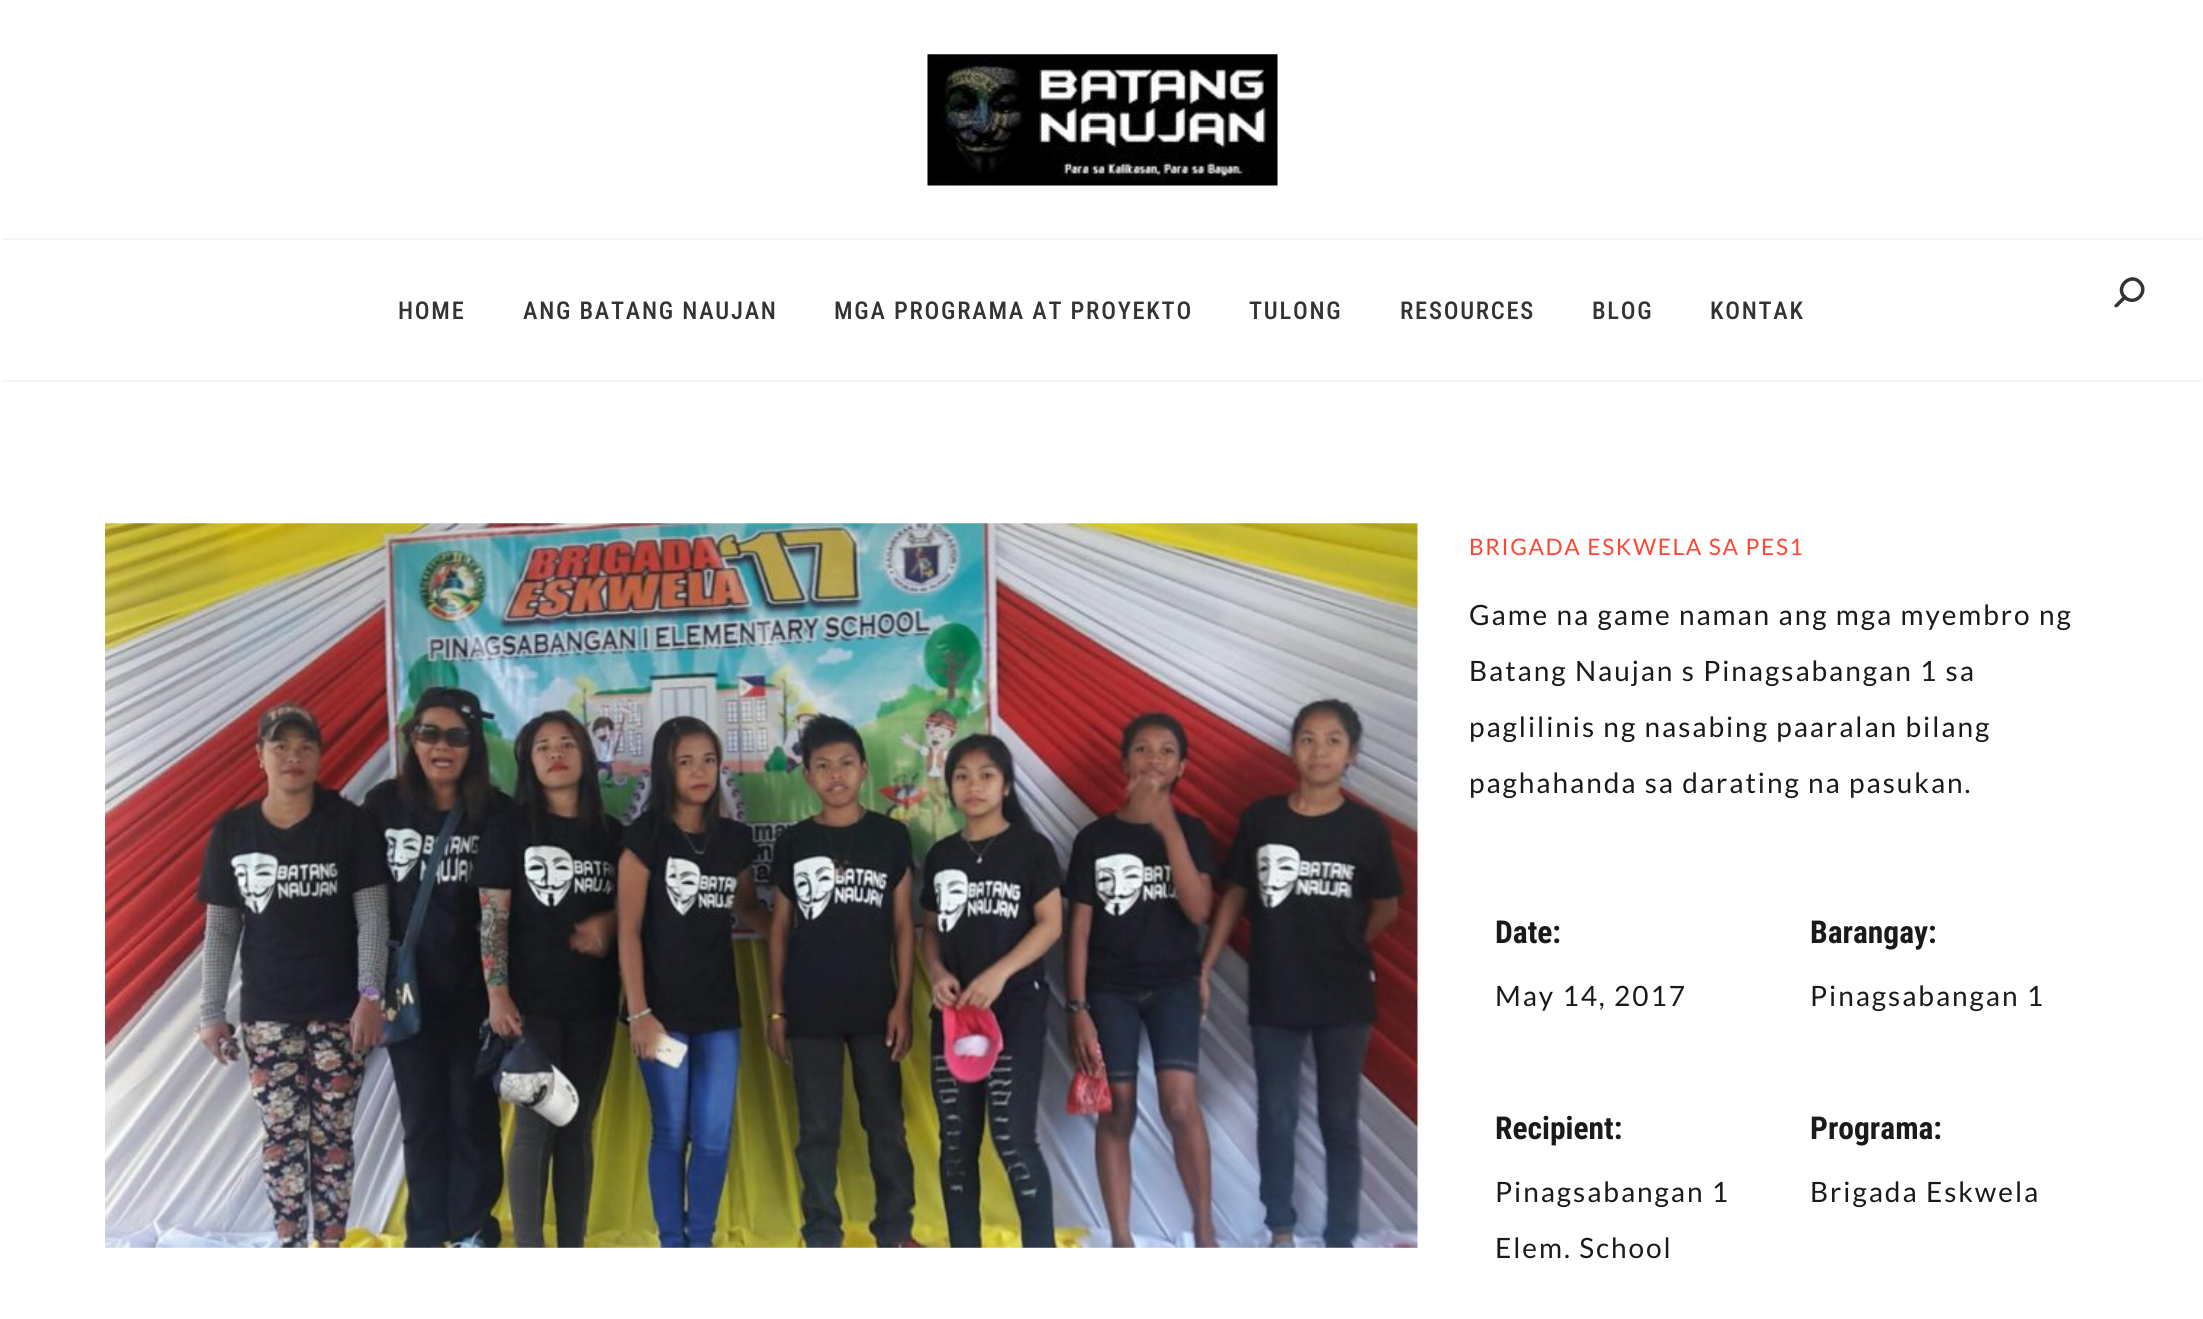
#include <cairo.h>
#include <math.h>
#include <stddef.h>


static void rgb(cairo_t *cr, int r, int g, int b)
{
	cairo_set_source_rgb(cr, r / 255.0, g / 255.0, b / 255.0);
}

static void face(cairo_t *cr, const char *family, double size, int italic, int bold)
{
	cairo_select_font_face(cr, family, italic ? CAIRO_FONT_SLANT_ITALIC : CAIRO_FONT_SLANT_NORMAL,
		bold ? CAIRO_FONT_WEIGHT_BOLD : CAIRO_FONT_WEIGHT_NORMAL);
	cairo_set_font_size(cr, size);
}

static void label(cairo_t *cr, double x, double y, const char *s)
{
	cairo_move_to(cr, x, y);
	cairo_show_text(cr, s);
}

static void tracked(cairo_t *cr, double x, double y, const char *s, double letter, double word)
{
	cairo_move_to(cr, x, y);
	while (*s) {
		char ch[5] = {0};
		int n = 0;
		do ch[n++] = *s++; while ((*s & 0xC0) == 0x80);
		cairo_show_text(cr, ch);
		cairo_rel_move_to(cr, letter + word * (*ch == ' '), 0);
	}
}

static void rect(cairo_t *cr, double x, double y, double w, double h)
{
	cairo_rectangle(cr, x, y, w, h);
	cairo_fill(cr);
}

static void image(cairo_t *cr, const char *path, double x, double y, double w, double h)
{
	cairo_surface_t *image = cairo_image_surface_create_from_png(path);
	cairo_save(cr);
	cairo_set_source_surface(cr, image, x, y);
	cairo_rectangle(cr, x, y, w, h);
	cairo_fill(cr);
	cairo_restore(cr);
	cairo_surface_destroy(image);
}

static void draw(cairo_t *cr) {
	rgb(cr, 255, 255, 255);
	cairo_paint(cr);
	image(cr, "image0.png", 927, 54, 351, 132);
	rgb(cr, 245, 245, 245);
	rect(cr, 2, 238, 2200, 2);
	rect(cr, 2, 380, 2200, 2);
	rgb(cr, 51, 51, 51);
	cairo_new_path(cr);
	cairo_move_to(cr, 2126, 296);
	cairo_curve_to(cr, 2126.5, 296.5, 2126.5, 297.5, 2126, 298.5);
	cairo_line_to(cr, 2117.5, 307);
	cairo_curve_to(cr, 2116.5, 307.5, 2115.5, 307.5, 2115, 307);
	cairo_curve_to(cr, 2114, 306.5, 2114, 305, 2115, 304.5);
	cairo_line_to(cr, 2123.5, 296);
	cairo_curve_to(cr, 2124, 295, 2125.5, 295, 2126, 296);
	cairo_close_path(cr);
	cairo_fill(cr);
	cairo_new_path(cr);
	cairo_move_to(cr, 2139.5, 282);
	cairo_curve_to(cr, 2149.5, 292, 2134.5, 307, 2124.5, 297);
	cairo_curve_to(cr, 2115, 287.5, 2130, 272.5, 2139.5, 282);
	cairo_close_path(cr);
	cairo_set_line_width(cr, 3.5);
	cairo_stroke(cr);
	face(cr, "Roboto Condensed Medium", 24.5, 0, 0);
	tracked(cr, 398, 319, "HOME", 1.75, 0);
	tracked(cr, 523, 319, "ANG BATANG NAUJAN", 1.75, 0);
	tracked(cr, 834, 319, "MGA PROGRAMA AT PROYEKTO", 1.75, 0);
	tracked(cr, 1249, 319, "TULONG", 1.75, 0);
	tracked(cr, 1400, 319, "RESOURCES", 1.75, 0);
	tracked(cr, 1592, 319, "BLOG", 1.75, 0);
	tracked(cr, 1710, 319, "KONTAK", 1.75, 0);
	image(cr, "image1.png", 105, 523, 1313, 725);
	face(cr, "Lato", 22.75, 0, 0);
	rgb(cr, 255, 70, 54);
	tracked(cr, 1469, 555, "BRIGADA ESKWELA SA PES1", 1.6, 0);
	face(cr, "Lato", 28, 0, 0);
	rgb(cr, 26, 26, 26);
	tracked(cr, 1469, 625, "Game na game naman ang mga myembro ng", 1.95, 0);
	tracked(cr, 1469, 681, "Batang Naujan s Pinagsabangan 1 sa", 1.95, 0);
	tracked(cr, 1469, 737, "paglilinis ng nasabing paaralan bilang", 1.95, 0);
	tracked(cr, 1469, 793, "paghahanda sa darating na pasukan.", 1.95, 0);
	face(cr, "Roboto Condensed", 31.5, 0, 1);
	label(cr, 1495, 943, "Date:");
	face(cr, "Lato", 28, 0, 0);
	tracked(cr, 1495, 1006, "May 14, 2017", 1.95, 0);
	face(cr, "Roboto Condensed", 31.5, 0, 1);
	label(cr, 1810, 943, "Barangay:");
	face(cr, "Lato", 28, 0, 0);
	tracked(cr, 1810, 1006, "Pinagsabangan 1", 1.95, 0);
	face(cr, "Roboto Condensed", 31.5, 0, 1);
	label(cr, 1495, 1139, "Recipient:");
	face(cr, "Lato", 28, 0, 0);
	tracked(cr, 1495, 1202, "Pinagsabangan 1", 1.95, 0);
	tracked(cr, 1495, 1258, "Elem. School", 1.95, 0);
	face(cr, "Roboto Condensed", 31.5, 0, 1);
	label(cr, 1810, 1139, "Programa:");
	face(cr, "Lato", 28, 0, 0);
	tracked(cr, 1810, 1202, "Brigada Eskwela", 1.95, 0);
}

int main(void) {
	cairo_surface_t *surface = cairo_image_surface_create(CAIRO_FORMAT_RGB24, 2203, 1319);
	cairo_t *cr = cairo_create(surface);
	cairo_font_options_t *options = cairo_font_options_create();
	cairo_font_options_set_hint_metrics(options, CAIRO_HINT_METRICS_OFF);
	cairo_font_options_set_hint_style(options, CAIRO_HINT_STYLE_NONE);
	cairo_set_font_options(cr, options);
	cairo_set_miter_limit(cr, 4);
	draw(cr);
	cairo_surface_write_to_png(surface, "render.png");
	cairo_font_options_destroy(options);
	cairo_destroy(cr);
	cairo_surface_destroy(surface);
	return 0;
}
